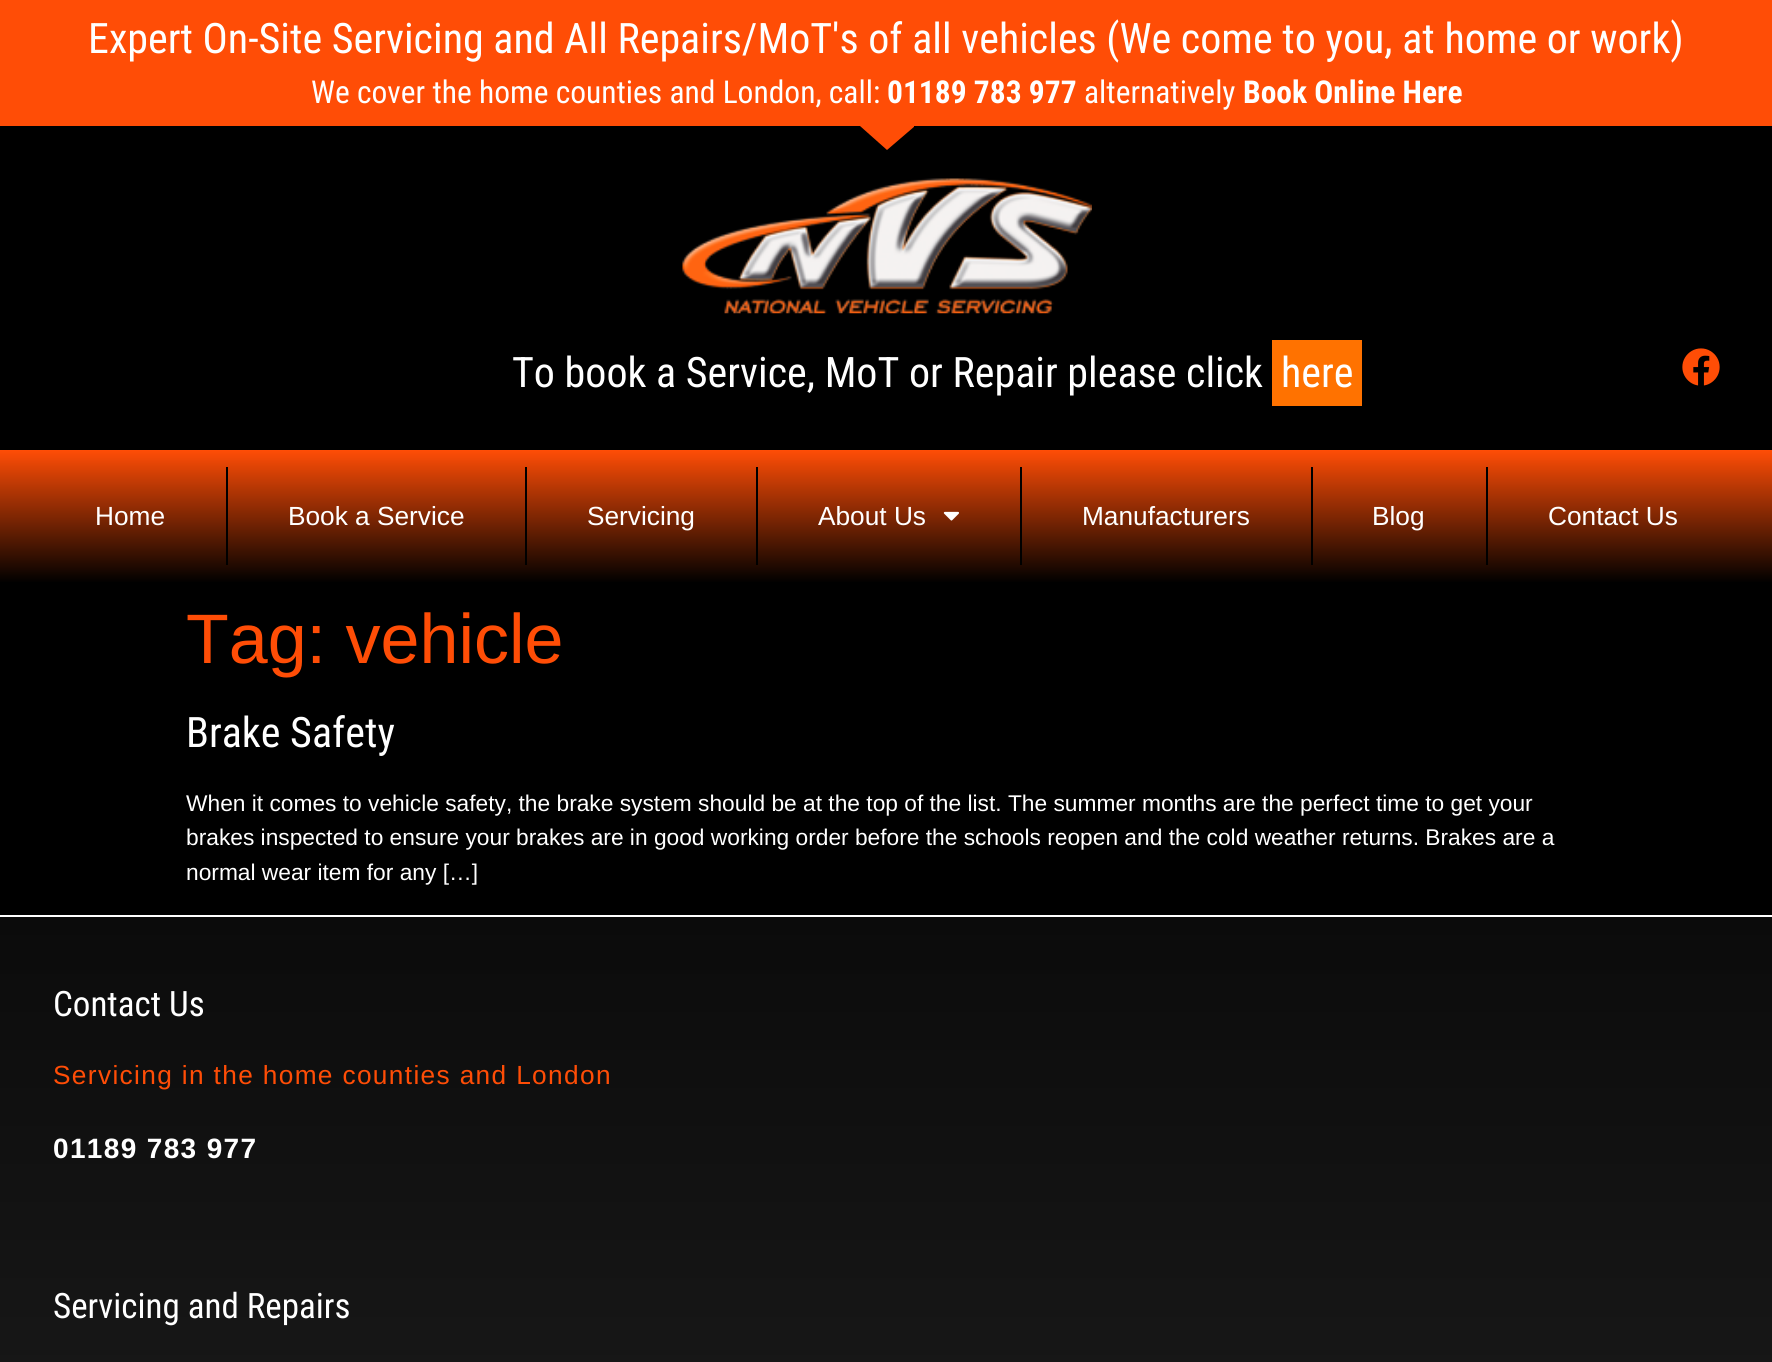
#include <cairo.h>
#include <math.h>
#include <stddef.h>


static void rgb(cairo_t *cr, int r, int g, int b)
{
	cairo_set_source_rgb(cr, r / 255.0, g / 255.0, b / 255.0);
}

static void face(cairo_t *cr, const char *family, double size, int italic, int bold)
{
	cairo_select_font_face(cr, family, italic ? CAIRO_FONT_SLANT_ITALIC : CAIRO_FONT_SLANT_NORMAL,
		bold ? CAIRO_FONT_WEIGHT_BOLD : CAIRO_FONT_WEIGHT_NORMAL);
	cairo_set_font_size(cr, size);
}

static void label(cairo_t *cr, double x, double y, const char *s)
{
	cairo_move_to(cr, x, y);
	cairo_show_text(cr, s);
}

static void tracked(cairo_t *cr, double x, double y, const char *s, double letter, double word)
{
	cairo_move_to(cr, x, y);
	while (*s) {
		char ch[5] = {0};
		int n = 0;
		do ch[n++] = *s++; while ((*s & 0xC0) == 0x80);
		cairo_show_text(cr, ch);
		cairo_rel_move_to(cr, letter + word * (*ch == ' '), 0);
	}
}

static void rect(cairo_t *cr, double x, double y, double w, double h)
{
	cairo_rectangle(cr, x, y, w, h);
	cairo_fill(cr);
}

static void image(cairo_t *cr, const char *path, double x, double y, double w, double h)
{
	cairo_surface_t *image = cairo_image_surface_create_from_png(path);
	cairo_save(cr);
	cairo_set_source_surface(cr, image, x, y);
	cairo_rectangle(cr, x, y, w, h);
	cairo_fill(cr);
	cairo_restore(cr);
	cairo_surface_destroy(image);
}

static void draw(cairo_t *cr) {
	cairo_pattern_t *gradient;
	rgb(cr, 0, 0, 0);
	cairo_paint(cr);
	rgb(cr, 255, 77, 6);
	rect(cr, 0, 0, 1772, 126);
	face(cr, "Roboto Condensed", 42, 0, 0);
	rgb(cr, 255, 255, 255);
	label(cr, 88, 53, "Expert On-Site Servicing and All Repairs/MoT's of all vehicles (We come to you, at home or work)");
	face(cr, "Roboto Condensed", 31.5, 0, 0);
	label(cr, 311, 103, "We cover the home counties and London, call:");
	face(cr, "Roboto Condensed", 31.5, 0, 1);
	label(cr, 887, 103, "01189 783 977");
	face(cr, "Roboto Condensed", 31.5, 0, 0);
	label(cr, 1084, 103, "alternatively");
	face(cr, "Roboto Condensed", 31.5, 0, 1);
	label(cr, 1243, 103, "Book Online Here");
	cairo_save(cr);
	cairo_rectangle(cr, 859, 124, 55, 27);
	cairo_clip(cr);
	rgb(cr, 255, 77, 6);
	cairo_new_path(cr);
	cairo_move_to(cr, 887, 150);
	cairo_line_to(cr, 860, 126);
	cairo_line_to(cr, 860, 124);
	cairo_line_to(cr, 915, 124);
	cairo_line_to(cr, 915, 126);
	cairo_close_path(cr);
	cairo_fill(cr);
	cairo_restore(cr);
	image(cr, "image0.png", 682, 178, 410, 136);
	face(cr, "Roboto Condensed", 42, 0, 0);
	label(cr, 512, 387, "To book a Service, MoT or Repair please click");
	rgb(cr, 255, 114, 0);
	rect(cr, 1272, 340, 90, 66);
	rgb(cr, 255, 255, 255);
	label(cr, 1281, 387, "here");
	image(cr, "image1.png", 1682, 348, 38, 38);
	gradient = cairo_pattern_create_linear(886, 583, 886, 450);
	cairo_pattern_add_color_stop_rgba(gradient, 0, 0, 0, 0, 1);
	cairo_pattern_add_color_stop_rgba(gradient, 1, 1, 0.302, 0.024, 1);
	cairo_set_source(cr, gradient);
	cairo_pattern_destroy(gradient);
	rect(cr, 0, 450, 1772, 132);
	face(cr, "Liberation Sans", 26.25, 0, 0);
	rgb(cr, 255, 255, 255);
	label(cr, 95, 525, "Home");
	rgb(cr, 0, 0, 0);
	rect(cr, 226, 467, 2, 98);
	rgb(cr, 255, 255, 255);
	label(cr, 288, 525, "Book a Service");
	rgb(cr, 0, 0, 0);
	rect(cr, 525, 467, 2, 98);
	rgb(cr, 255, 255, 255);
	label(cr, 587, 525, "Servicing");
	rgb(cr, 0, 0, 0);
	rect(cr, 756, 467, 2, 98);
	rgb(cr, 255, 255, 255);
	label(cr, 818, 525, "About Us");
	image(cr, "image2.png", 943, 511, 16, 10);
	rgb(cr, 0, 0, 0);
	rect(cr, 1020, 467, 2, 98);
	rgb(cr, 255, 255, 255);
	label(cr, 1082, 525, "Manufacturers");
	rgb(cr, 0, 0, 0);
	rect(cr, 1311, 467, 2, 98);
	rgb(cr, 255, 255, 255);
	label(cr, 1372, 525, "Blog");
	rgb(cr, 0, 0, 0);
	rect(cr, 1486, 467, 2, 98);
	rgb(cr, 255, 255, 255);
	label(cr, 1548, 525, "Contact Us");
	face(cr, "Liberation Sans", 70, 0, 0);
	rgb(cr, 255, 77, 6);
	label(cr, 186, 663, "Tag: vehicle");
	face(cr, "Roboto Condensed", 42, 0, 0);
	rgb(cr, 255, 255, 255);
	label(cr, 186, 747, "Brake Safety");
	face(cr, "Liberation Sans", 22.75, 0, 0);
	label(cr, 186, 811, "When it comes to vehicle safety, the brake system should be at the top of the list. The summer months are the perfect time to get your");
	label(cr, 186, 845, "brakes inspected to ensure your brakes are in good working order before the schools reopen and the cold weather returns. Brakes are a");
	label(cr, 186, 880, "normal wear item for any […]");
	gradient = cairo_pattern_create_linear(886, 915, 886, 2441);
	cairo_pattern_add_color_stop_rgba(gradient, 0, 0.043, 0.043, 0.043, 1);
	cairo_pattern_add_color_stop_rgba(gradient, 1, 0.2, 0.2, 0.2, 1);
	cairo_set_source(cr, gradient);
	cairo_pattern_destroy(gradient);
	rect(cr, 0, 917, 1772, 445);
	rgb(cr, 255, 255, 255);
	rect(cr, 0, 915, 1772, 2);
	face(cr, "Roboto Condensed", 35, 0, 0);
	label(cr, 53, 1016, "Contact Us");
	face(cr, "Liberation Sans", 26.25, 0, 0);
	rgb(cr, 255, 77, 6);
	tracked(cr, 53, 1084, "Servicing in the home counties and London", 1.35, 0);
	face(cr, "Liberation Sans", 28, 0, 1);
	rgb(cr, 255, 255, 255);
	tracked(cr, 53, 1158, "01189 783 977", 1.35, 0);
	face(cr, "Roboto Condensed", 35, 0, 0);
	label(cr, 53, 1318, "Servicing and Repairs");
}

int main(void) {
	cairo_surface_t *surface = cairo_image_surface_create(CAIRO_FORMAT_RGB24, 1772, 1362);
	cairo_t *cr = cairo_create(surface);
	cairo_font_options_t *options = cairo_font_options_create();
	cairo_font_options_set_hint_metrics(options, CAIRO_HINT_METRICS_OFF);
	cairo_font_options_set_hint_style(options, CAIRO_HINT_STYLE_NONE);
	cairo_set_font_options(cr, options);
	cairo_set_miter_limit(cr, 4);
	draw(cr);
	cairo_surface_write_to_png(surface, "render.png");
	cairo_font_options_destroy(options);
	cairo_destroy(cr);
	cairo_surface_destroy(surface);
	return 0;
}
